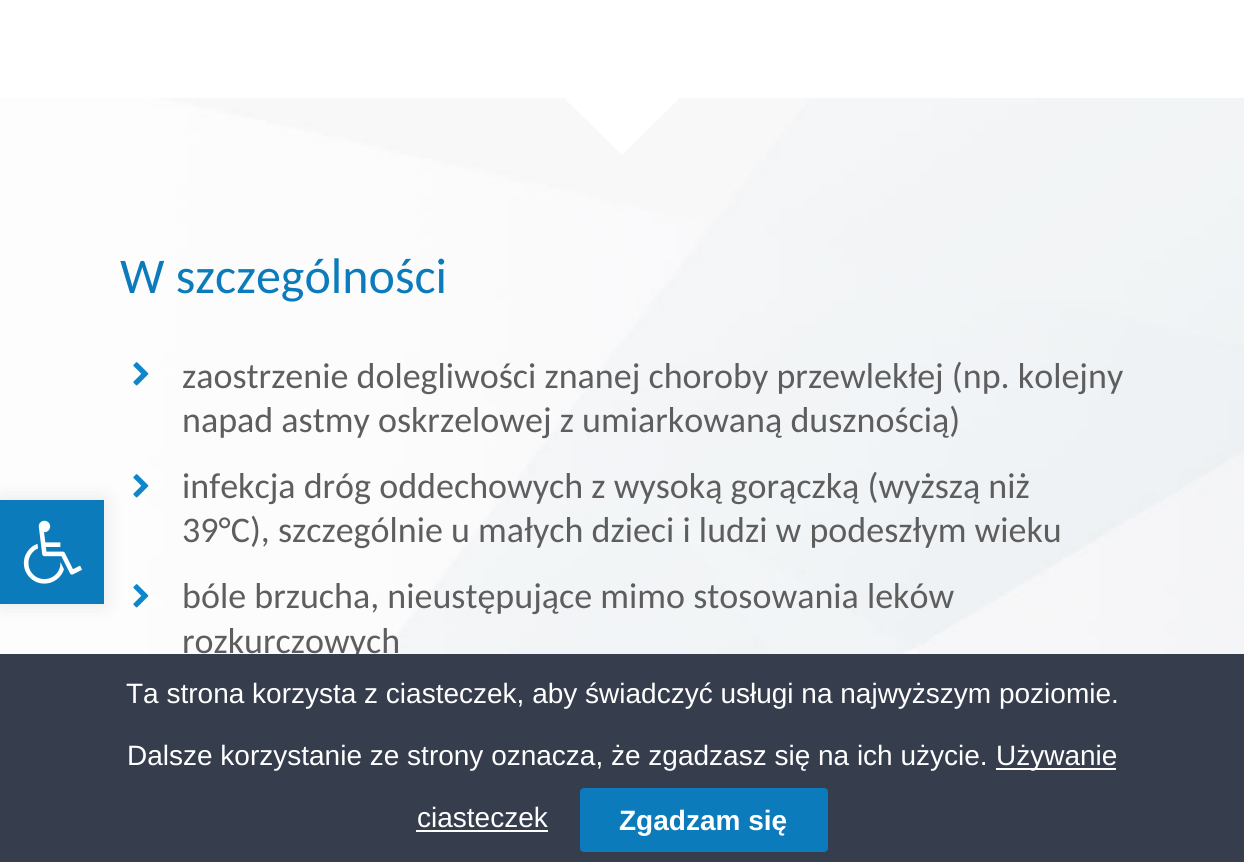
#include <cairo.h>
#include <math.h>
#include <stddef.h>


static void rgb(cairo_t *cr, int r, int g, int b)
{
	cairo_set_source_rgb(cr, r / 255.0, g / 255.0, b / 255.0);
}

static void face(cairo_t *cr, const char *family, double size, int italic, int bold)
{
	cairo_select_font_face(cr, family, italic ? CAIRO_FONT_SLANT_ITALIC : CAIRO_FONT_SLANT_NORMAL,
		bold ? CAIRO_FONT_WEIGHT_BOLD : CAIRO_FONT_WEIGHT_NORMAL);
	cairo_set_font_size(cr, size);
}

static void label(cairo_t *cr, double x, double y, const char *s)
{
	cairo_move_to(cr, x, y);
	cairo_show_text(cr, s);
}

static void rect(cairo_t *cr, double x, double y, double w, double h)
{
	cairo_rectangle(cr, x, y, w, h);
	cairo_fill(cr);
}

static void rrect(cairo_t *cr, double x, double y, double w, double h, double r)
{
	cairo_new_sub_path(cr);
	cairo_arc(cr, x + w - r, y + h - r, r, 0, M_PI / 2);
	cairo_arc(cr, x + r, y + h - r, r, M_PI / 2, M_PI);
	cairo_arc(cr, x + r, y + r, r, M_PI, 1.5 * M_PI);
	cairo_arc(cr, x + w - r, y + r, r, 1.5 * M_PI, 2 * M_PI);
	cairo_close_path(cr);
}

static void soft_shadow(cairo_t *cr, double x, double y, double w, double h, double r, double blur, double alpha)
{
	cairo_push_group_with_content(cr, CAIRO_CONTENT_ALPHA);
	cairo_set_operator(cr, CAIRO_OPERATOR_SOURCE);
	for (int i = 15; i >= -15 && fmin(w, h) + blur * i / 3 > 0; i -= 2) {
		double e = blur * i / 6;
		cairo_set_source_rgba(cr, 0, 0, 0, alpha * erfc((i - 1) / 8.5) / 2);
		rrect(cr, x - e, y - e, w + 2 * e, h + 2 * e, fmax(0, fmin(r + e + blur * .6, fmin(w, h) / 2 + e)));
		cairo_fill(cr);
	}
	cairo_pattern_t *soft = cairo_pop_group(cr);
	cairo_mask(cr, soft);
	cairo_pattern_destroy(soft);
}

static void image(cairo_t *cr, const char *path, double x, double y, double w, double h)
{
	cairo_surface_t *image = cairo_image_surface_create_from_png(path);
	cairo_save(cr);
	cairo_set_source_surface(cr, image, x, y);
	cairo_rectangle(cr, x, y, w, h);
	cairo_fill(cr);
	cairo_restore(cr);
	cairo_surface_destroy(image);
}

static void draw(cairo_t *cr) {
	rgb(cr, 255, 255, 255);
	cairo_paint(cr);
	image(cr, "image1.png", 0, 98, 1244, 556);
	image(cr, "image2.png", 133, 474, 16, 24);
	image(cr, "image2.png", 133, 584, 16, 24);
	rgb(cr, 0, 0, 0);
	soft_shadow(cr, 0, 500, 104, 104, 0, 10, 0.1);
	rgb(cr, 12, 123, 187);
	rect(cr, 0, 500, 104, 104);
	image(cr, "image0.png", 23, 520, 59, 64);
	rgb(cr, 255, 255, 255);
	cairo_new_path(cr);
	cairo_move_to(cr, 564, 96);
	cairo_line_to(cr, 680, 96);
	cairo_line_to(cr, 622, 154);
	cairo_close_path(cr);
	cairo_fill(cr);
	cairo_new_path(cr);
	cairo_move_to(cr, 621, 154);
	cairo_line_to(cr, 677, 97);
	cairo_line_to(cr, 679, 99);
	cairo_line_to(cr, 622, 155);
	cairo_close_path(cr);
	cairo_fill(cr);
	cairo_new_path(cr);
	cairo_move_to(cr, 565, 99);
	cairo_line_to(cr, 567, 97);
	cairo_line_to(cr, 623, 154);
	cairo_line_to(cr, 622, 155);
	cairo_close_path(cr);
	cairo_fill(cr);
	face(cr, "Carlito", 50, 0, 0);
	rgb(cr, 12, 123, 187);
	label(cr, 120, 293, "W szczególności");
	image(cr, "image2.png", 133, 362, 16, 24);
	face(cr, "Carlito", 36, 0, 0);
	rgb(cr, 94, 94, 94);
	label(cr, 182, 388, "zaostrzenie dolegliwości znanej choroby przewlekłej (np. kolejny");
	label(cr, 182, 432, "napad astmy oskrzelowej z umiarkowaną dusznością)");
	label(cr, 182, 498, "infekcja dróg oddechowych z wysoką gorączką (wyższą niż");
	label(cr, 182, 542, "39°C), szczególnie u małych dzieci i ludzi w podeszłym wieku");
	label(cr, 182, 608, "bóle brzucha, nieustępujące mimo stosowania leków");
	label(cr, 182, 653, "rozkurczowych");
	rgb(cr, 54, 61, 77);
	rect(cr, 0, 654, 1244, 208);
	face(cr, "Liberation Sans", 28, 0, 0);
	rgb(cr, 255, 255, 255);
	label(cr, 126, 703, "Ta strona korzysta z ciasteczek, aby świadczyć usługi na najwyższym poziomie.");
	label(cr, 127, 765, "Dalsze korzystanie ze strony oznacza, że zgadzasz się na ich użycie.");
	rect(cr, 996, 768, 120, 2);
	label(cr, 996, 765, "Używanie");
	label(cr, 417, 827, "ciasteczek");
	rect(cr, 416, 830, 132, 2);
	rgb(cr, 12, 123, 187);
	rrect(cr, 580, 788, 248, 64, 4);
	cairo_fill(cr);
	face(cr, "Liberation Sans", 28, 0, 1);
	rgb(cr, 255, 255, 255);
	label(cr, 619, 830, "Zgadzam się");
}

int main(void) {
	cairo_surface_t *surface = cairo_image_surface_create(CAIRO_FORMAT_RGB24, 1244, 862);
	cairo_t *cr = cairo_create(surface);
	cairo_font_options_t *options = cairo_font_options_create();
	cairo_font_options_set_hint_metrics(options, CAIRO_HINT_METRICS_OFF);
	cairo_font_options_set_hint_style(options, CAIRO_HINT_STYLE_NONE);
	cairo_set_font_options(cr, options);
	cairo_set_miter_limit(cr, 4);
	draw(cr);
	cairo_surface_write_to_png(surface, "render.png");
	cairo_font_options_destroy(options);
	cairo_destroy(cr);
	cairo_surface_destroy(surface);
	return 0;
}
